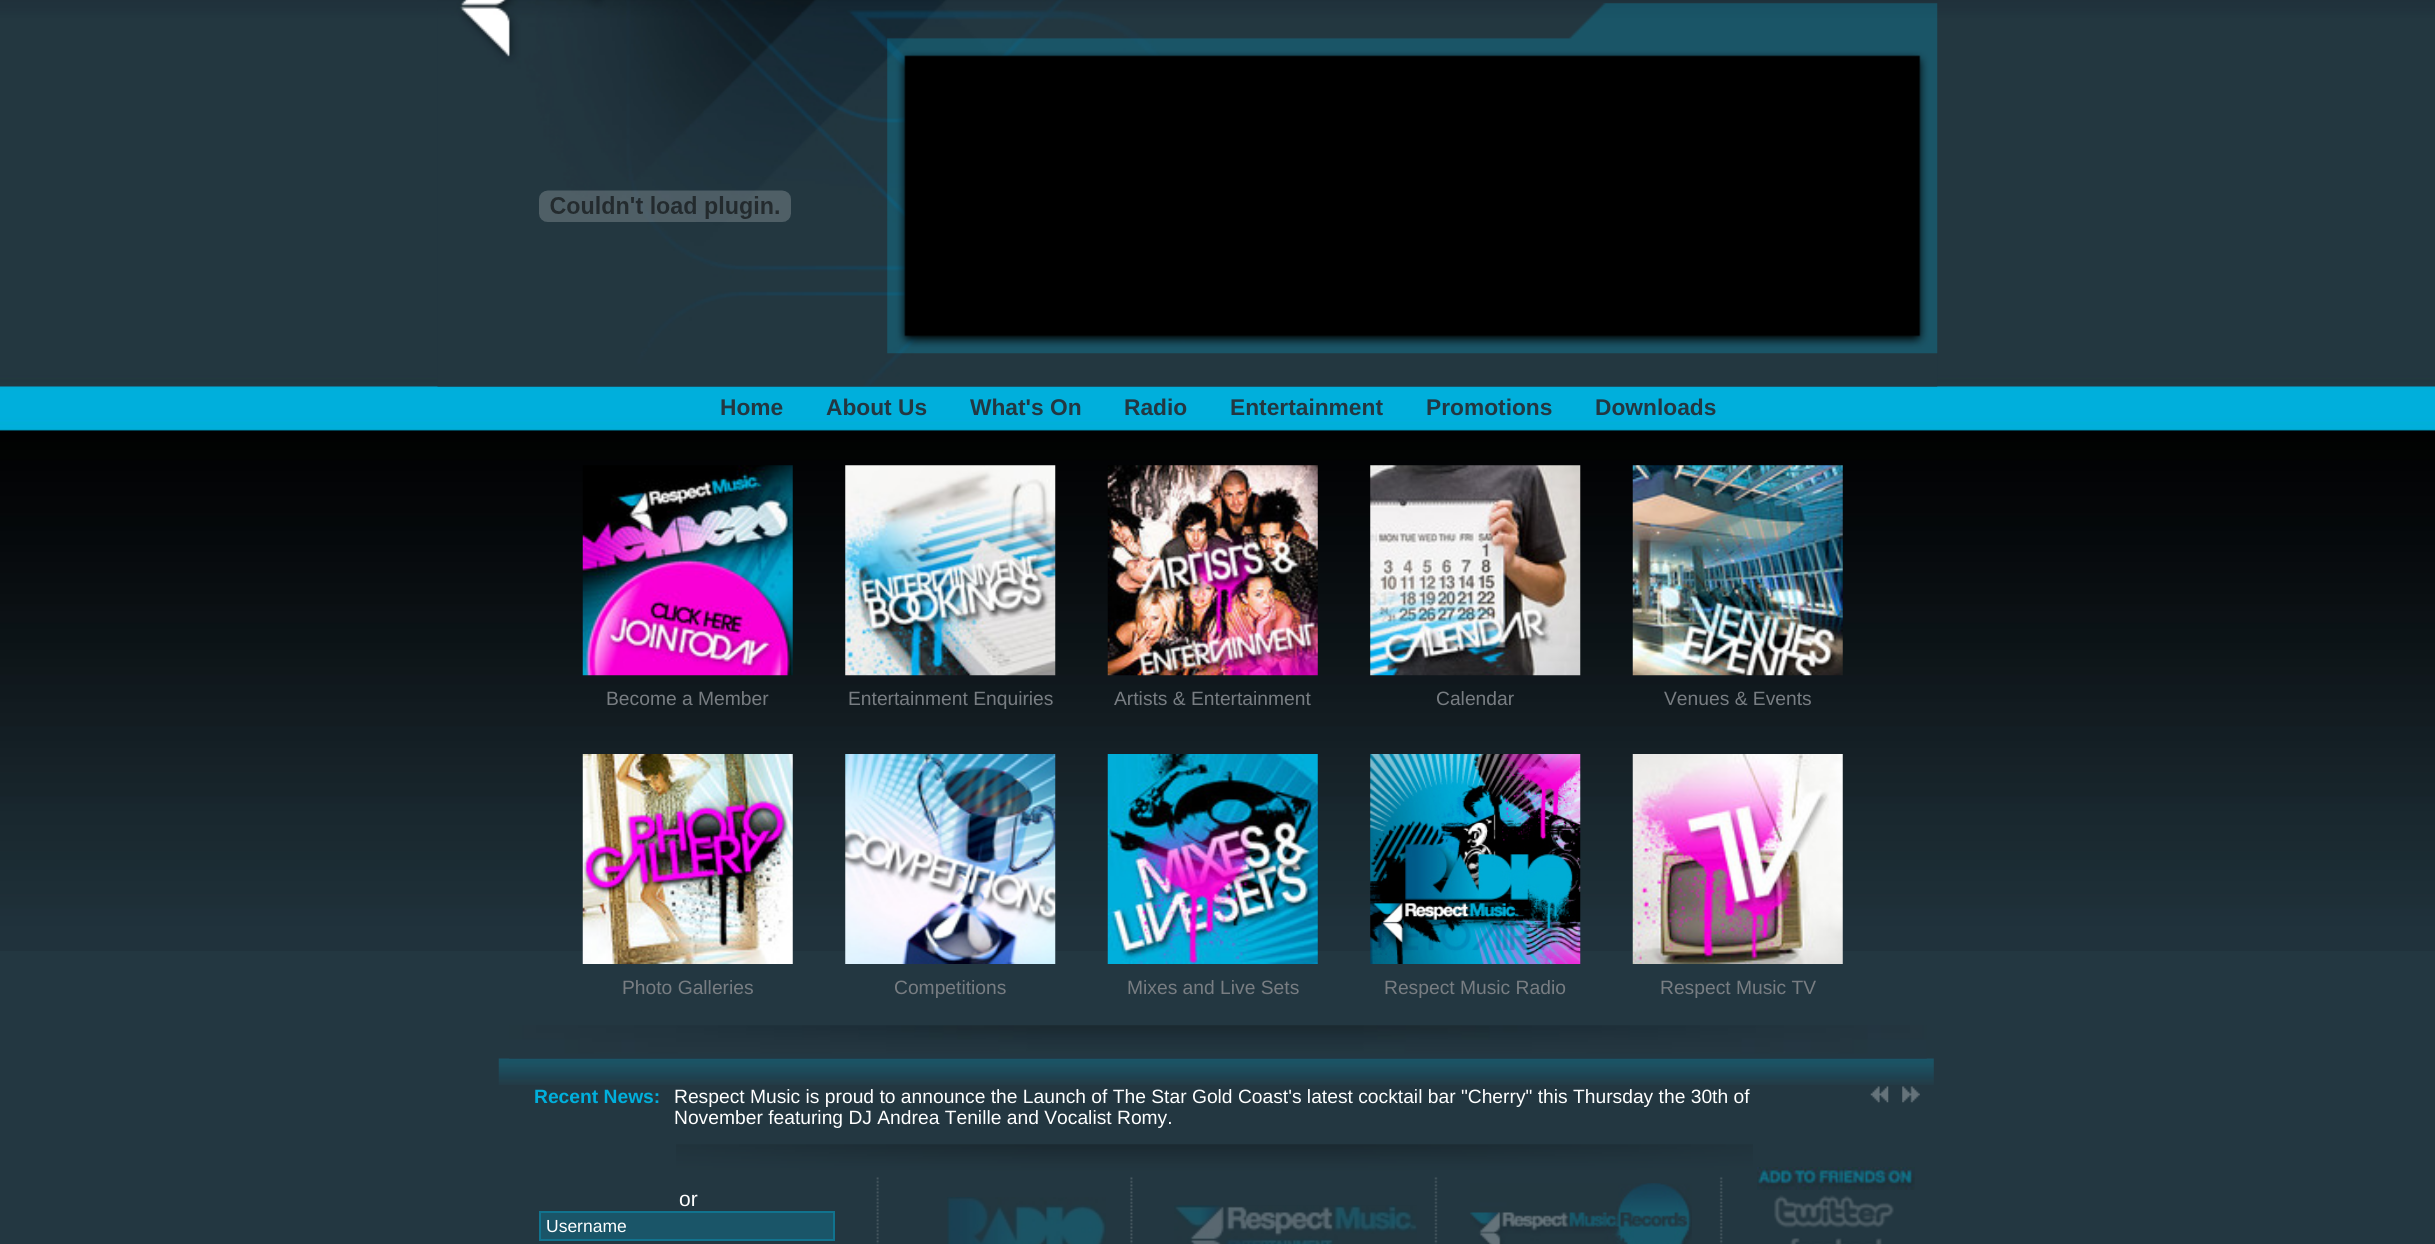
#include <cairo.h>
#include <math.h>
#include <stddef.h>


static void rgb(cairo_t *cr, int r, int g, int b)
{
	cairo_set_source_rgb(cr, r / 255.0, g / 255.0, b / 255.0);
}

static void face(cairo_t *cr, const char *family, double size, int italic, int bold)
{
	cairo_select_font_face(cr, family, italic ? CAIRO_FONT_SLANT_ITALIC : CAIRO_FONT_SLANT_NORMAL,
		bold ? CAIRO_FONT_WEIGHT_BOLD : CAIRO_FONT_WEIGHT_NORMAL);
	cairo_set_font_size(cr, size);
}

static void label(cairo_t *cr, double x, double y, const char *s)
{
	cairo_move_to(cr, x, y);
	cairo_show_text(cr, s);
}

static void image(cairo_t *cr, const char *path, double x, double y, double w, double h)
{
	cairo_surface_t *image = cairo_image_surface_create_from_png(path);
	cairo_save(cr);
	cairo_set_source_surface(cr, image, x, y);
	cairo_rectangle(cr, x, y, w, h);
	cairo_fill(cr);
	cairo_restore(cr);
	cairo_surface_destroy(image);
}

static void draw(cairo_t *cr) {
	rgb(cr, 35, 55, 65);
	cairo_paint(cr);
	image(cr, "image0.png", 0, 0, 2435, 951);
	image(cr, "image1.png", 437, 0, 1501, 387);
	image(cr, "image2.png", 539, 190, 252, 32);
	image(cr, "image3.png", 887, 3, 1051, 351);
	face(cr, "Liberation Sans", 22.75, 0, 1);
	rgb(cr, 35, 55, 65);
	label(cr, 720, 415, "Home");
	label(cr, 826, 415, "About Us");
	label(cr, 970, 415, "What's On");
	label(cr, 1124, 415, "Radio");
	label(cr, 1230, 415, "Entertainment");
	label(cr, 1426, 415, "Promotions");
	label(cr, 1595, 415, "Downloads");
	image(cr, "image15.png", 498, 1058, 1436, 27);
	image(cr, "image4.png", 509, 1025, 1418, 34);
	image(cr, "image5.png", 582, 465, 211, 211);
	face(cr, "Liberation Sans", 19.25, 0, 0);
	rgb(cr, 120, 125, 130);
	label(cr, 606, 705, "Become a Member");
	image(cr, "image6.png", 845, 465, 211, 211);
	label(cr, 848, 705, "Entertainment Enquiries");
	image(cr, "image7.png", 1107, 465, 211, 211);
	label(cr, 1114, 705, "Artists & Entertainment");
	image(cr, "image8.png", 1370, 465, 211, 211);
	label(cr, 1436, 705, "Calendar");
	image(cr, "image9.png", 1632, 465, 211, 211);
	label(cr, 1664, 705, "Venues & Events");
	image(cr, "image10.png", 582, 754, 211, 210);
	label(cr, 622, 994, "Photo Galleries");
	image(cr, "image11.png", 845, 754, 211, 210);
	label(cr, 894, 994, "Competitions");
	image(cr, "image12.png", 1107, 754, 211, 210);
	label(cr, 1127, 994, "Mixes and Live Sets");
	image(cr, "image13.png", 1370, 754, 211, 210);
	label(cr, 1384, 994, "Respect Music Radio");
	image(cr, "image14.png", 1632, 754, 211, 210);
	label(cr, 1660, 994, "Respect Music TV");
	face(cr, "Liberation Sans", 19.25, 0, 1);
	rgb(cr, 0, 175, 220);
	label(cr, 534, 1103, "Recent News:");
	face(cr, "Liberation Sans", 19.25, 0, 0);
	rgb(cr, 255, 255, 255);
	label(cr, 674, 1103, "Respect Music is proud to announce the Launch of The Star Gold Coast's latest cocktail bar \"Cherry\" this Thursday the 30th of");
	label(cr, 674, 1124, "November featuring DJ Andrea Tenille and Vocalist Romy.");
	image(cr, "image16.png", 1870, 1086, 19, 17);
	image(cr, "image17.png", 1902, 1086, 18, 17);
	image(cr, "image18.png", 676, 1144, 1077, 100);
	face(cr, "Liberation Sans", 21, 0, 0);
	label(cr, 679, 1206, "or");
	rgb(cr, 26, 85, 104);
	cairo_rectangle(cr, 540, 1212, 294, 28);
	cairo_fill_preserve(cr);
	rgb(cr, 17, 115, 142);
	cairo_stroke(cr);
	face(cr, "Liberation Sans", 17.5, 0, 0);
	rgb(cr, 255, 255, 255);
	label(cr, 546, 1232, "Username");
	image(cr, "image19.png", 947, 1197, 159, 47);
	image(cr, "image20.png", 1174, 1205, 243, 39);
	image(cr, "image21.png", 1470, 1183, 222, 61);
	image(cr, "image22.png", 1757, 1167, 158, 23);
	image(cr, "image23.png", 1774, 1195, 120, 33);
	image(cr, "image24.png", 1790, 1238, 92, 6);
}

int main(void) {
	cairo_surface_t *surface = cairo_image_surface_create(CAIRO_FORMAT_RGB24, 2435, 1244);
	cairo_t *cr = cairo_create(surface);
	cairo_font_options_t *options = cairo_font_options_create();
	cairo_font_options_set_hint_metrics(options, CAIRO_HINT_METRICS_OFF);
	cairo_font_options_set_hint_style(options, CAIRO_HINT_STYLE_NONE);
	cairo_set_font_options(cr, options);
	cairo_set_miter_limit(cr, 4);
	draw(cr);
	cairo_surface_write_to_png(surface, "render.png");
	cairo_font_options_destroy(options);
	cairo_destroy(cr);
	cairo_surface_destroy(surface);
	return 0;
}
